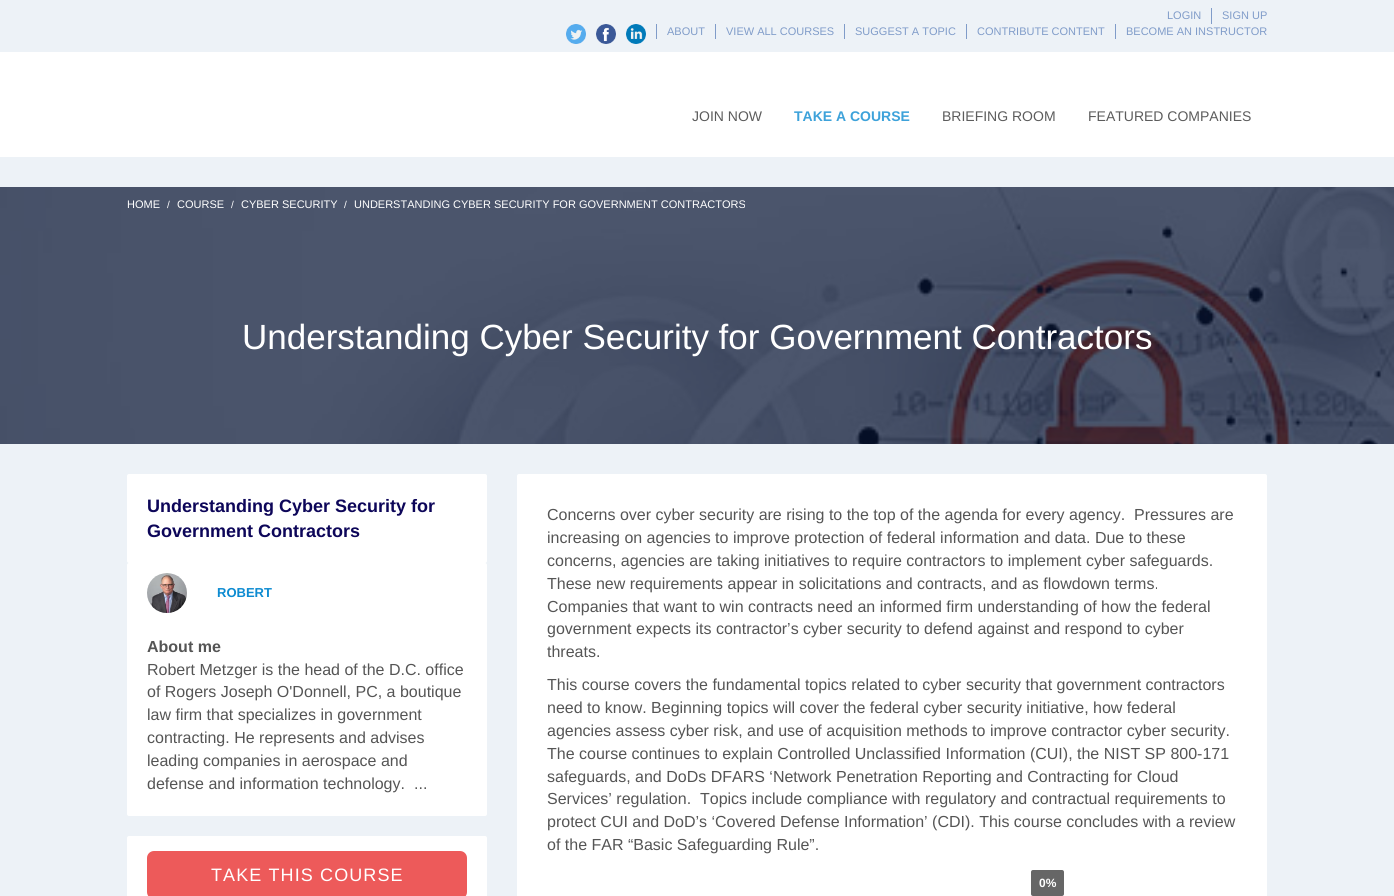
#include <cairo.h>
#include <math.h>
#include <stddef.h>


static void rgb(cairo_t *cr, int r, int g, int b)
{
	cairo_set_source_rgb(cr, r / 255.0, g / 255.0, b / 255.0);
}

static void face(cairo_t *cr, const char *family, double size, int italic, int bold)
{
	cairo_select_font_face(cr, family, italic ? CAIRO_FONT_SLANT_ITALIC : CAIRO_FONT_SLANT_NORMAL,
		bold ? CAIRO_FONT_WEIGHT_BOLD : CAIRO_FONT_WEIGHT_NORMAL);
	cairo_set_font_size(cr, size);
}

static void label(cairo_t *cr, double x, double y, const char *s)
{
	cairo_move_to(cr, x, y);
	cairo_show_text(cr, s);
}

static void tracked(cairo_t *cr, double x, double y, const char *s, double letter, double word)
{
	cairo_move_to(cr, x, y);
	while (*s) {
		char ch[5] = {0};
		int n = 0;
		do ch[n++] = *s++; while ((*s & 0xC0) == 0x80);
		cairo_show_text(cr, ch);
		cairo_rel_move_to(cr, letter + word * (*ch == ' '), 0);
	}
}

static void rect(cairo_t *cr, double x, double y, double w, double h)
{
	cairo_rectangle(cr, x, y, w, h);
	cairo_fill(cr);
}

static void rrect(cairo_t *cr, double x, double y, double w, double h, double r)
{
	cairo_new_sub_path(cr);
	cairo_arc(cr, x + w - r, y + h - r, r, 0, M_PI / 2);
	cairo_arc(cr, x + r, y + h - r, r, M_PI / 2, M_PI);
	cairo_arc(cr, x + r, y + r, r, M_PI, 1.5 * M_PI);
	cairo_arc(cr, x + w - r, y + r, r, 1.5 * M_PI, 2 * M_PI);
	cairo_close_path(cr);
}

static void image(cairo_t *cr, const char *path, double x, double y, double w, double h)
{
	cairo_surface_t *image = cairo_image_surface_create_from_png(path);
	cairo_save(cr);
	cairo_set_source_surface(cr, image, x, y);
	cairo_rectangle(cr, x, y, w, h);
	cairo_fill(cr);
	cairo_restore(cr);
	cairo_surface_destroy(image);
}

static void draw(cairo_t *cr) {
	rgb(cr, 237, 242, 247);
	cairo_paint(cr);
	face(cr, "Liberation Sans", 11, 0, 0);
	rgb(cr, 128, 156, 201);
	label(cr, 1167, 19, "LOGIN");
	rect(cr, 1211, 8, 1, 16);
	label(cr, 1222, 19, "SIGN UP");
	image(cr, "image0.png", 566, 24, 20, 20);
	image(cr, "image1.png", 596, 24, 20, 20);
	image(cr, "image2.png", 626, 24, 20, 20);
	rect(cr, 656, 24, 1, 15);
	label(cr, 667, 35, "ABOUT");
	rect(cr, 715, 24, 1, 15);
	label(cr, 726, 35, "VIEW ALL COURSES");
	rect(cr, 844, 24, 1, 15);
	label(cr, 855, 35, "SUGGEST A TOPIC");
	rect(cr, 966, 24, 1, 15);
	label(cr, 977, 35, "CONTRIBUTE CONTENT");
	rect(cr, 1115, 24, 1, 15);
	label(cr, 1126, 35, "BECOME AN INSTRUCTOR");
	rgb(cr, 255, 255, 255);
	rect(cr, 0, 52, 1394, 105);
	face(cr, "Liberation Sans", 14, 0, 0);
	rgb(cr, 92, 92, 92);
	label(cr, 692, 121, "JOIN NOW");
	face(cr, "Liberation Sans", 14, 0, 1);
	rgb(cr, 61, 162, 218);
	label(cr, 794, 121, "TAKE A COURSE");
	face(cr, "Liberation Sans", 14, 0, 0);
	rgb(cr, 92, 92, 92);
	label(cr, 942, 121, "BRIEFING ROOM");
	label(cr, 1088, 121, "FEATURED COMPANIES");
	image(cr, "image3.png", 0, 187, 1394, 257);
	cairo_set_source_rgba(cr, 0.031, 0.086, 0.208, 0.72);
	rect(cr, 0, 187, 1394, 42);
	face(cr, "Liberation Sans", 11, 0, 0);
	rgb(cr, 255, 255, 255);
	label(cr, 127, 208, "HOME");
	face(cr, "Liberation Sans", 10, 0, 0);
	label(cr, 167, 208, "/");
	face(cr, "Liberation Sans", 11, 0, 0);
	label(cr, 177, 208, "COURSE");
	face(cr, "Liberation Sans", 10, 0, 0);
	label(cr, 231, 208, "/");
	face(cr, "Liberation Sans", 11, 0, 0);
	label(cr, 241, 208, "CYBER SECURITY");
	face(cr, "Liberation Sans", 10, 0, 0);
	label(cr, 344, 208, "/");
	face(cr, "Liberation Sans", 11, 0, 0);
	label(cr, 354, 208, "UNDERSTANDING CYBER SECURITY FOR GOVERNMENT CONTRACTORS");
	cairo_set_source_rgba(cr, 0.031, 0.086, 0.208, 0.72);
	rect(cr, 0, 229, 1394, 215);
	face(cr, "Liberation Sans", 35, 0, 0);
	rgb(cr, 255, 255, 255);
	label(cr, 242, 349, "Understanding Cyber Security for Government Contractors");
	rrect(cr, 127, 474, 360, 89, 2);
	cairo_fill(cr);
	face(cr, "Liberation Sans", 18, 0, 1);
	rgb(cr, 13, 6, 89);
	label(cr, 147, 512, "Understanding Cyber Security for");
	label(cr, 147, 537, "Government Contractors");
	rgb(cr, 255, 255, 255);
	rrect(cr, 127, 563, 360, 253, 2);
	cairo_fill(cr);
	image(cr, "image4.png", 147, 573, 40, 40);
	face(cr, "Liberation Sans", 13, 0, 1);
	rgb(cr, 13, 139, 209);
	label(cr, 217, 597, "ROBERT");
	face(cr, "Liberation Sans", 16, 0, 1);
	rgb(cr, 85, 85, 85);
	label(cr, 147, 652, "About me");
	face(cr, "Liberation Sans", 16, 0, 0);
	label(cr, 147, 675, "Robert Metzger is the head of the D.C. office");
	label(cr, 147, 697, "of Rogers Joseph O'Donnell, PC, a boutique");
	label(cr, 147, 720, "law firm that specializes in government");
	label(cr, 147, 743, "contracting. He represents and advises");
	label(cr, 147, 766, "leading companies in aerospace and");
	label(cr, 147, 789, "defense and information technology.");
	label(cr, 414, 789, "...");
	rgb(cr, 255, 255, 255);
	rrect(cr, 127, 836, 360, 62, 2);
	cairo_fill(cr);
	rgb(cr, 237, 90, 90);
	rrect(cr, 147, 851, 320, 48, 7);
	cairo_fill(cr);
	face(cr, "Liberation Sans", 18, 0, 0);
	rgb(cr, 255, 255, 255);
	tracked(cr, 211, 881, "TAKE THIS COURSE", 1.1, 0);
	rrect(cr, 517, 474, 750, 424, 2);
	cairo_fill(cr);
	face(cr, "Liberation Sans", 16, 0, 0);
	rgb(cr, 85, 85, 85);
	label(cr, 547, 520, "Concerns over cyber security are rising to the top of the agenda for every agency.  Pressures are");
	label(cr, 547, 543, "increasing on agencies to improve protection of federal information and data. Due to these");
	label(cr, 547, 566, "concerns, agencies are taking initiatives to require contractors to implement cyber safeguards.");
	label(cr, 547, 589, "These new requirements appear in solicitations and contracts, and as flowdown terms.");
	label(cr, 547, 612, "Companies that want to win contracts need an informed firm understanding of how the federal");
	label(cr, 547, 634, "government expects its contractor’s cyber security to defend against and respond to cyber");
	label(cr, 547, 657, "threats.");
	label(cr, 547, 690, "This course covers the fundamental topics related to cyber security that government contractors");
	label(cr, 547, 713, "need to know. Beginning topics will cover the federal cyber security initiative, how federal");
	label(cr, 547, 736, "agencies assess cyber risk, and use of acquisition methods to improve contractor cyber security.");
	label(cr, 547, 759, "The course continues to explain Controlled Unclassified Information (CUI), the NIST SP 800-171");
	label(cr, 547, 782, "safeguards, and DoDs DFARS ‘Network Penetration Reporting and Contracting for Cloud");
	label(cr, 547, 804, "Services’ regulation.  Topics include compliance with regulatory and contractual requirements to");
	label(cr, 547, 827, "protect CUI and DoD’s ‘Covered Defense Information’ (CDI). This course concludes with a review");
	label(cr, 547, 850, "of the FAR “Basic Safeguarding Rule”.");
	rgb(cr, 102, 102, 102);
	rrect(cr, 1031, 870, 33, 26, 2);
	cairo_fill(cr);
	face(cr, "Liberation Sans", 12, 0, 1);
	rgb(cr, 255, 255, 255);
	label(cr, 1039, 887, "0%");
}

int main(void) {
	cairo_surface_t *surface = cairo_image_surface_create(CAIRO_FORMAT_RGB24, 1394, 896);
	cairo_t *cr = cairo_create(surface);
	cairo_font_options_t *options = cairo_font_options_create();
	cairo_font_options_set_hint_metrics(options, CAIRO_HINT_METRICS_OFF);
	cairo_font_options_set_hint_style(options, CAIRO_HINT_STYLE_NONE);
	cairo_set_font_options(cr, options);
	cairo_set_miter_limit(cr, 4);
	draw(cr);
	cairo_surface_write_to_png(surface, "render.png");
	cairo_font_options_destroy(options);
	cairo_destroy(cr);
	cairo_surface_destroy(surface);
	return 0;
}
